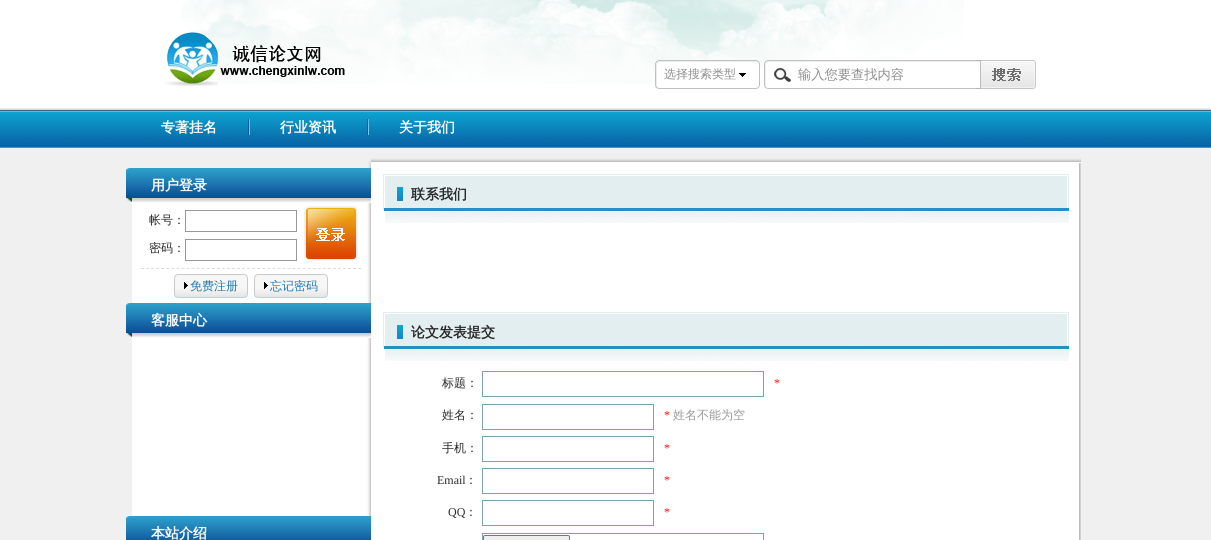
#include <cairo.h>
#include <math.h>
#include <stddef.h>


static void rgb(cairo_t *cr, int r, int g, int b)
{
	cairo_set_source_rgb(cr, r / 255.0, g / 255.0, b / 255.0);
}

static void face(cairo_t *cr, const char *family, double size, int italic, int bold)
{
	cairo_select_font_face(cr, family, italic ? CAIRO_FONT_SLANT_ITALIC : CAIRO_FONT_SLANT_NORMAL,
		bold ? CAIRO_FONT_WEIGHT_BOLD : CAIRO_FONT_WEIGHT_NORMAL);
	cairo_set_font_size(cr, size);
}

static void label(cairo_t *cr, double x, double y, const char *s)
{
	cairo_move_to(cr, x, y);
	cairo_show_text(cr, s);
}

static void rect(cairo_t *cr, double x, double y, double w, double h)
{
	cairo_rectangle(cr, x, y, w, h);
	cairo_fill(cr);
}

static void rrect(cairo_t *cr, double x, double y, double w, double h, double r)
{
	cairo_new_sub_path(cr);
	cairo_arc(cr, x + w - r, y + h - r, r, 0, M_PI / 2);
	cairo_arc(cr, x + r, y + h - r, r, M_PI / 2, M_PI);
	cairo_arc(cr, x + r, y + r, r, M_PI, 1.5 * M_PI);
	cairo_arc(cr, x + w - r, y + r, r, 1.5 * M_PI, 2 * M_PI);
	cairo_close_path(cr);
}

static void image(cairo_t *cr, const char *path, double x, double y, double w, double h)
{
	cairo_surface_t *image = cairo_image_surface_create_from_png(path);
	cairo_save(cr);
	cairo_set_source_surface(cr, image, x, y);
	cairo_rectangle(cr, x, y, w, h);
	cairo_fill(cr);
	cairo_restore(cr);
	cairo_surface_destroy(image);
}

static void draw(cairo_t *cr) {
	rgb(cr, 240, 240, 240);
	cairo_paint(cr);
	rgb(cr, 255, 255, 255);
	rect(cr, 0, 0, 1211, 108);
	image(cr, "image0.png", 181, 0, 783, 84);
	image(cr, "image1.png", 164, 32, 181, 54);
	image(cr, "image2.png", 655, 60, 381, 29);
	face(cr, "WenQuanYi Zen Hei Medium", 12, 0, 0);
	rgb(cr, 143, 143, 143);
	label(cr, 664, 78, "选择搜索类型");
	face(cr, "WenQuanYi Zen Hei Medium", 13.25, 0, 0);
	label(cr, 798, 79, "输入您要查找内容");
	image(cr, "image3.png", 0, 108, 1211, 40);
	image(cr, "image4.png", 248, 119, 2, 16);
	face(cr, "WenQuanYi Zen Hei", 14, 0, 1);
	rgb(cr, 255, 255, 255);
	label(cr, 161, 132, "专著挂名");
	image(cr, "image4.png", 367, 119, 2, 16);
	label(cr, 280, 132, "行业资讯");
	label(cr, 399, 132, "关于我们");
	image(cr, "image5.png", 132, 163, 949, 377);
	rgb(cr, 240, 240, 240);
	rect(cr, 132, 163, 239, 5);
	image(cr, "image6.png", 368, 160, 3, 8);
	image(cr, "image7.png", 131, 168, 240, 35);
	image(cr, "image8.png", 126, 168, 6, 34);
	rgb(cr, 255, 255, 255);
	label(cr, 151, 190, "用户登录");
	face(cr, "WenQuanYi Zen Hei Medium", 12, 0, 0);
	rgb(cr, 41, 41, 41);
	label(cr, 149, 224, "帐号：");
	cairo_rectangle(cr, 185.5, 210.5, 111, 21);
	rgb(cr, 152, 152, 152);
	cairo_set_line_width(cr, 1);
	cairo_stroke(cr);
	rgb(cr, 41, 41, 41);
	label(cr, 149, 252, "密码：");
	cairo_rectangle(cr, 185.5, 239.5, 111, 21);
	rgb(cr, 152, 152, 152);
	cairo_stroke(cr);
	image(cr, "image9.png", 304, 206, 54, 54);
	cairo_new_path(cr);
	cairo_move_to(cr, 141, 268.5);
	cairo_line_to(cr, 361, 268.5);
	rgb(cr, 221, 221, 221);
	cairo_set_dash(cr, (double[]){3, 2.05}, 2, 0);
	cairo_stroke(cr);
	image(cr, "image10.png", 174, 274, 74, 24);
	rgb(cr, 33, 121, 174);
	label(cr, 190, 290, "免费注册");
	image(cr, "image10.png", 254, 274, 74, 24);
	label(cr, 270, 290, "忘记密码");
	image(cr, "image7.png", 131, 303, 240, 35);
	image(cr, "image8.png", 126, 303, 6, 34);
	face(cr, "WenQuanYi Zen Hei", 14, 0, 1);
	rgb(cr, 255, 255, 255);
	label(cr, 151, 325, "客服中心");
	image(cr, "image11.png", 131, 516, 240, 24);
	image(cr, "image12.png", 126, 516, 5, 24);
	label(cr, 151, 538, "本站介绍");
	image(cr, "image13.png", 371, 158, 710, 5);
	image(cr, "image14.png", 383, 174, 686, 49);
	rgb(cr, 41, 41, 41);
	label(cr, 411, 199, "联系我们");
	image(cr, "image14.png", 383, 312, 686, 49);
	label(cr, 411, 337, "论文发表提交");
	face(cr, "WenQuanYi Zen Hei Medium", 12, 0, 0);
	label(cr, 442, 387, "标题：");
	cairo_rectangle(cr, 482.5, 371.5, 281, 25);
	rgb(cr, 124, 161, 179);
	cairo_set_dash(cr, NULL, 0, 0);
	cairo_stroke(cr);
	face(cr, "Liberation Serif", 12, 0, 0);
	rgb(cr, 255, 0, 0);
	label(cr, 774, 387, "*");
	face(cr, "WenQuanYi Zen Hei Medium", 12, 0, 0);
	rgb(cr, 41, 41, 41);
	label(cr, 442, 419, "姓名：");
	cairo_rectangle(cr, 482.5, 404.5, 171, 25);
	rgb(cr, 124, 161, 179);
	cairo_stroke(cr);
	face(cr, "Liberation Serif", 12, 0, 0);
	rgb(cr, 255, 0, 0);
	label(cr, 664, 419, "*");
	face(cr, "WenQuanYi Zen Hei Medium", 12, 0, 0);
	rgb(cr, 153, 153, 153);
	label(cr, 673, 419, "姓名不能为空");
	rgb(cr, 41, 41, 41);
	label(cr, 442, 452, "手机：");
	cairo_rectangle(cr, 482.5, 436.5, 171, 25);
	rgb(cr, 124, 161, 179);
	cairo_stroke(cr);
	face(cr, "Liberation Serif", 12, 0, 0);
	rgb(cr, 255, 0, 0);
	label(cr, 664, 452, "*");
	rgb(cr, 41, 41, 41);
	label(cr, 437, 484, "Email");
	face(cr, "WenQuanYi Zen Hei Medium", 12, 0, 0);
	label(cr, 465, 484, "：");
	cairo_rectangle(cr, 482.5, 468.5, 171, 25);
	rgb(cr, 124, 161, 179);
	cairo_stroke(cr);
	face(cr, "Liberation Serif", 12, 0, 0);
	rgb(cr, 255, 0, 0);
	label(cr, 664, 484, "*");
	rgb(cr, 41, 41, 41);
	label(cr, 448, 516, "QQ");
	face(cr, "WenQuanYi Zen Hei Medium", 12, 0, 0);
	label(cr, 465, 516, "：");
	cairo_rectangle(cr, 482.5, 500.5, 171, 25);
	rgb(cr, 124, 161, 179);
	cairo_stroke(cr);
	face(cr, "Liberation Serif", 12, 0, 0);
	rgb(cr, 255, 0, 0);
	label(cr, 664, 516, "*");
	cairo_rectangle(cr, 482.5, 533.5, 281, 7);
	rgb(cr, 124, 161, 179);
	cairo_stroke(cr);
	rgb(cr, 239, 239, 239);
	rrect(cr, 483.5, 535.5, 86, 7, 1.5);
	cairo_fill_preserve(cr);
	rgb(cr, 118, 118, 118);
	cairo_stroke(cr);
}

int main(void) {
	cairo_surface_t *surface = cairo_image_surface_create(CAIRO_FORMAT_RGB24, 1211, 540);
	cairo_t *cr = cairo_create(surface);
	cairo_font_options_t *options = cairo_font_options_create();
	cairo_font_options_set_hint_metrics(options, CAIRO_HINT_METRICS_OFF);
	cairo_font_options_set_hint_style(options, CAIRO_HINT_STYLE_NONE);
	cairo_set_font_options(cr, options);
	cairo_set_miter_limit(cr, 4);
	draw(cr);
	cairo_surface_write_to_png(surface, "render.png");
	cairo_font_options_destroy(options);
	cairo_destroy(cr);
	cairo_surface_destroy(surface);
	return 0;
}
